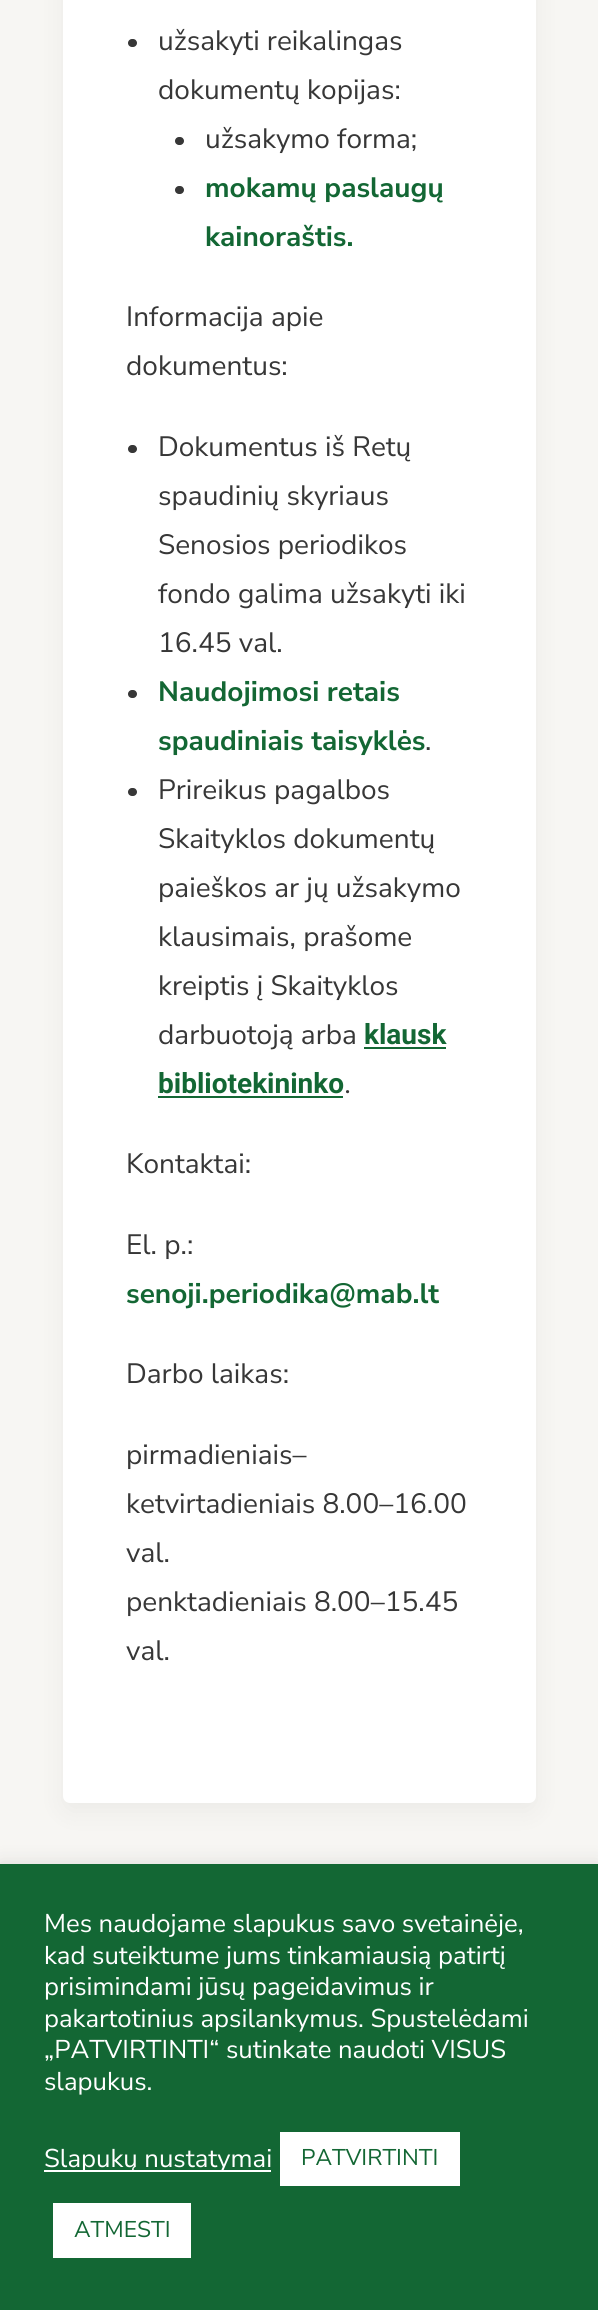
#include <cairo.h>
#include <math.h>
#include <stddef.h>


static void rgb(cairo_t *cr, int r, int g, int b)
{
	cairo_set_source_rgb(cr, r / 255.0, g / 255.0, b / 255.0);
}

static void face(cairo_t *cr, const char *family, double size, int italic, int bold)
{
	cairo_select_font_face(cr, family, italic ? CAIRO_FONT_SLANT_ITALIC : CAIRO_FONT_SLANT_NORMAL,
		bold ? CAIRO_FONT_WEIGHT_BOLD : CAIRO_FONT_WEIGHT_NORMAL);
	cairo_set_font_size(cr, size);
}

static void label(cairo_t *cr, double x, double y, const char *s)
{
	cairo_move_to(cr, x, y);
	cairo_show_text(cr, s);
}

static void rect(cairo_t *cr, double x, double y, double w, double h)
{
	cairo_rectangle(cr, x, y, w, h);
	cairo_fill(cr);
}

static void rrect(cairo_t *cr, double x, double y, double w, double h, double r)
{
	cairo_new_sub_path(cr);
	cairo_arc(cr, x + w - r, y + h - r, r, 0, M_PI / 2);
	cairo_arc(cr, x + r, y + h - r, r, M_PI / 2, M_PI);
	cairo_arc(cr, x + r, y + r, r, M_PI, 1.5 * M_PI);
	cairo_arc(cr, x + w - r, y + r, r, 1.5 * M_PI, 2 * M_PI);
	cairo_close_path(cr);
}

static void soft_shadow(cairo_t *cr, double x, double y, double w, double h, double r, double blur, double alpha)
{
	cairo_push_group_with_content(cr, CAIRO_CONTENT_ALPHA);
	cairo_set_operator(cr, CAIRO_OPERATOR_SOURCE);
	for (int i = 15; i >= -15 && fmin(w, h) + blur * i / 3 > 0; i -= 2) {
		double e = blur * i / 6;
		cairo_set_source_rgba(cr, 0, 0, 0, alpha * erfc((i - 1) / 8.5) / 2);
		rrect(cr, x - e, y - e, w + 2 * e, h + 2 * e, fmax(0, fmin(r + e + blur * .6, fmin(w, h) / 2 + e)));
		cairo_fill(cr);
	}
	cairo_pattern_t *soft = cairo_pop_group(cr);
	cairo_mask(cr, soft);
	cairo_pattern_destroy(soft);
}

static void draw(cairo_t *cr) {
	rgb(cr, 247, 246, 243);
	cairo_paint(cr);
	rgb(cr, 0, 0, 0);
	soft_shadow(cr, 63, -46, 473, 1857, 7, 13, 0.05);
	rgb(cr, 255, 255, 255);
	rrect(cr, 63, -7, 473, 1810, 7);
	cairo_fill(cr);
	rgb(cr, 55, 55, 55);
	rrect(cr, 128, 39, 9, 8, 4);
	cairo_fill(cr);
	face(cr, "Nunito Sans", 28, 0, 0);
	label(cr, 158, 50, "užsakyti reikalingas");
	label(cr, 158, 99, "dokumentų kopijas:");
	rrect(cr, 175, 137, 9, 8, 4);
	cairo_fill(cr);
	label(cr, 205, 148, "užsakymo forma;");
	rrect(cr, 175, 186, 9, 8, 4);
	cairo_fill(cr);
	face(cr, "Nunito Sans", 28, 0, 1);
	rgb(cr, 19, 103, 52);
	label(cr, 205, 197, "mokamų paslaugų");
	label(cr, 205, 246, "kainoraštis.");
	face(cr, "Nunito Sans", 28, 0, 0);
	rgb(cr, 55, 55, 55);
	label(cr, 126, 326, "Informacija apie");
	label(cr, 126, 375, "dokumentus:");
	rrect(cr, 128, 445, 9, 8, 4);
	cairo_fill(cr);
	label(cr, 158, 456, "Dokumentus iš Retų");
	label(cr, 158, 505, "spaudinių skyriaus");
	label(cr, 158, 554, "Senosios periodikos");
	label(cr, 158, 603, "fondo galima užsakyti iki");
	label(cr, 158, 652, "16.45 val.");
	rrect(cr, 128, 690, 9, 8, 4);
	cairo_fill(cr);
	face(cr, "Nunito Sans", 28, 0, 1);
	rgb(cr, 19, 103, 52);
	label(cr, 158, 701, "Naudojimosi retais");
	label(cr, 158, 750, "spaudiniais taisyklės");
	face(cr, "Nunito Sans", 28, 0, 0);
	rgb(cr, 55, 55, 55);
	label(cr, 425, 750, ".");
	rrect(cr, 128, 788, 9, 8, 4);
	cairo_fill(cr);
	label(cr, 158, 799, "Prireikus pagalbos");
	label(cr, 158, 848, "Skaityklos dokumentų");
	label(cr, 158, 897, "paieškos ar jų užsakymo");
	label(cr, 158, 946, "klausimais, prašome");
	label(cr, 158, 995, "kreiptis į Skaityklos");
	label(cr, 158, 1044, "darbuotoją arba");
	face(cr, "Roboto", 28, 0, 1);
	rgb(cr, 19, 103, 52);
	label(cr, 364, 1044, "klausk");
	rect(cr, 364, 1047, 82, 2);
	label(cr, 158, 1093, "bibliotekininko");
	rect(cr, 158, 1096, 185, 2);
	face(cr, "Roboto", 28, 0, 0);
	rgb(cr, 55, 55, 55);
	label(cr, 344, 1093, ".");
	face(cr, "Nunito Sans", 28, 0, 0);
	label(cr, 126, 1173, "Kontaktai:");
	label(cr, 126, 1254, "El. p.:");
	face(cr, "Nunito Sans", 28, 0, 1);
	rgb(cr, 19, 103, 52);
	label(cr, 126, 1303, "senoji.periodika@mab.lt");
	face(cr, "Nunito Sans", 28, 0, 0);
	rgb(cr, 55, 55, 55);
	label(cr, 126, 1383, "Darbo laikas:");
	label(cr, 126, 1464, "pirmadieniais–");
	label(cr, 126, 1513, "ketvirtadieniais 8.00–16.00");
	label(cr, 126, 1562, "val.");
	label(cr, 126, 1611, "penktadieniais 8.00–15.45");
	label(cr, 126, 1660, "val.");
	rgb(cr, 172, 171, 171);
	soft_shadow(cr, 0, 1862, 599, 446, 0, 9, 0.3);
	rgb(cr, 19, 103, 52);
	rect(cr, 0, 1864, 598, 446);
	face(cr, "Nunito Sans", 25.7, 0, 0);
	rgb(cr, 255, 255, 255);
	label(cr, 44, 1932, "Mes naudojame slapukus savo svetainėje,");
	label(cr, 44, 1964, "kad suteiktume jums tinkamiausią patirtį");
	label(cr, 44, 1995, "prisimindami jūsų pageidavimus ir");
	label(cr, 44, 2027, "pakartotinius apsilankymus. Spustelėdami");
	label(cr, 44, 2058, "„PATVIRTINTI“ sutinkate naudoti VISUS");
	label(cr, 44, 2090, "slapukus.");
	rect(cr, 44, 2170, 227, 2);
	label(cr, 44, 2167, "Slapukų nustatymai");
	rect(cr, 280, 2132, 180, 54);
	face(cr, "Nunito Sans", 22.75, 0, 0);
	rgb(cr, 19, 103, 52);
	label(cr, 301, 2165, "PATVIRTINTI");
	rgb(cr, 255, 255, 255);
	rect(cr, 53, 2203, 138, 55);
	rgb(cr, 19, 103, 52);
	label(cr, 74, 2237, "ATMESTI");
}

int main(void) {
	cairo_surface_t *surface = cairo_image_surface_create(CAIRO_FORMAT_RGB24, 598, 2310);
	cairo_t *cr = cairo_create(surface);
	cairo_font_options_t *options = cairo_font_options_create();
	cairo_font_options_set_hint_metrics(options, CAIRO_HINT_METRICS_OFF);
	cairo_font_options_set_hint_style(options, CAIRO_HINT_STYLE_NONE);
	cairo_set_font_options(cr, options);
	cairo_set_miter_limit(cr, 4);
	draw(cr);
	cairo_surface_write_to_png(surface, "render.png");
	cairo_font_options_destroy(options);
	cairo_destroy(cr);
	cairo_surface_destroy(surface);
	return 0;
}
